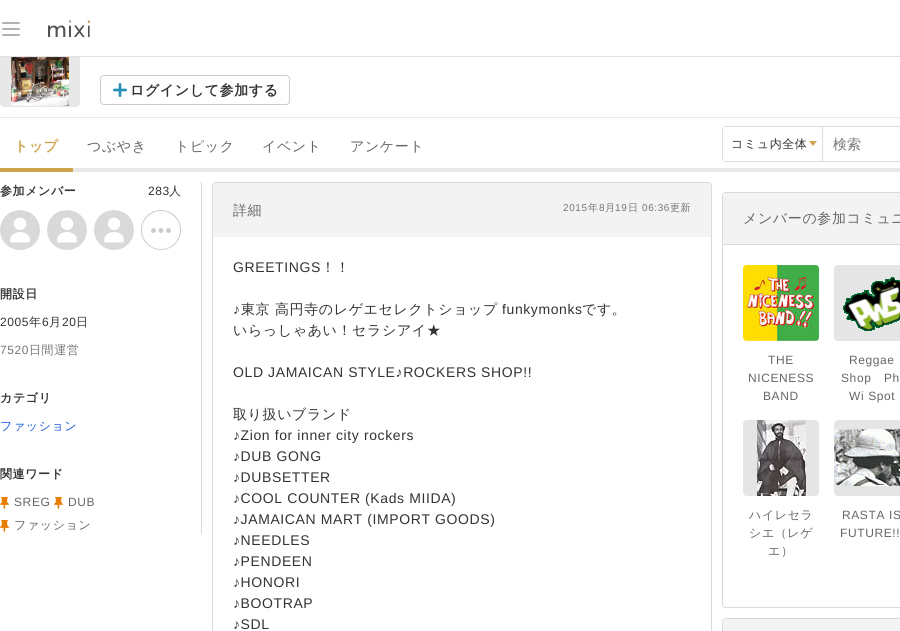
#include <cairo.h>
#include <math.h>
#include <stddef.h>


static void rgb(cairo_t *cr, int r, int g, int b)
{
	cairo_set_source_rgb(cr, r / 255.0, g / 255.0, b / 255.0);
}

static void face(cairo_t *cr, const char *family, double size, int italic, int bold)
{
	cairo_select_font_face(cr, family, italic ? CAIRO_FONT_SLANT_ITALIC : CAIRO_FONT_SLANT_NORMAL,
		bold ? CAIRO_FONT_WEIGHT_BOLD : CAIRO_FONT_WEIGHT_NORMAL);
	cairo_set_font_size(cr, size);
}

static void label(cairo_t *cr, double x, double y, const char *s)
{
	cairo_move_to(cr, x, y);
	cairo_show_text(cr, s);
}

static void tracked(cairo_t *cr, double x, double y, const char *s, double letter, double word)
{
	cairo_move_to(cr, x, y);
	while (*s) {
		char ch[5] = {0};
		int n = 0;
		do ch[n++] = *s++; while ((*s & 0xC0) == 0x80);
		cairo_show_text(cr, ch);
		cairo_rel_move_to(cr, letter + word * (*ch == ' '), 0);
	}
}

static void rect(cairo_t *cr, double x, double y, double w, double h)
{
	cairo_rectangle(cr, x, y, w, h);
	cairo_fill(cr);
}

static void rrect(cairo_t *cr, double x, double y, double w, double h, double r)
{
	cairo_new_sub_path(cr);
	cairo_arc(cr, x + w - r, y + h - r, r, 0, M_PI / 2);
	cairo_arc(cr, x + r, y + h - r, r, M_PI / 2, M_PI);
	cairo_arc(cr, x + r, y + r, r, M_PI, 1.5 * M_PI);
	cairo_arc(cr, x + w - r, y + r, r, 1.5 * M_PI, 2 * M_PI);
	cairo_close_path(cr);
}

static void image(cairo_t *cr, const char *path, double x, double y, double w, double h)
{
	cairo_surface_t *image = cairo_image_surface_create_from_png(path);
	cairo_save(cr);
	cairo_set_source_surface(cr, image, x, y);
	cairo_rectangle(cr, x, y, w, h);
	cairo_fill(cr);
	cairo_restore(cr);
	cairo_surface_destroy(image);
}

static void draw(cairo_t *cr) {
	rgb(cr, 255, 255, 255);
	cairo_paint(cr);
	rgb(cr, 232, 232, 232);
	rrect(cr, 0.5, 27.5, 79, 79, 3.5);
	cairo_fill_preserve(cr);
	rgb(cr, 229, 229, 229);
	cairo_set_line_width(cr, 1);
	cairo_stroke(cr);
	rgb(cr, 255, 255, 255);
	rect(cr, 0, 27, 80, 29);
	rgb(cr, 225, 225, 225);
	rect(cr, 0, 56, 900, 1);
	rgb(cr, 178, 178, 178);
	rrect(cr, 2, 22, 18, 2, 1);
	cairo_fill(cr);
	rrect(cr, 2, 28, 18, 2, 1);
	cairo_fill(cr);
	rrect(cr, 2, 34, 18, 2, 1);
	cairo_fill(cr);
	image(cr, "image0.png", 48, 20, 42, 17);
	image(cr, "image1.png", 11, 57, 58, 49);
	image(cr, "image2.png", 113, 83, 14, 14);
	rrect(cr, 100.5, 75.5, 189, 29, 3.5);
	rgb(cr, 204, 204, 204);
	cairo_stroke(cr);
	face(cr, "WenQuanYi Zen Hei", 14, 0, 1);
	rgb(cr, 51, 51, 51);
	tracked(cr, 130, 95, "ログインして参加する", 0.6, 0);
	rgb(cr, 232, 232, 232);
	rect(cr, 0, 117, 900, 1);
	rect(cr, 73, 168, 827, 4);
	rgb(cr, 207, 163, 76);
	rect(cr, 0, 168, 73, 4);
	tracked(cr, 14, 151, "トップ", 0.6, 0);
	face(cr, "WenQuanYi Zen Hei Medium", 14, 0, 0);
	rgb(cr, 102, 102, 102);
	tracked(cr, 87, 151, "つぶやき", 0.6, 0);
	tracked(cr, 175, 151, "トピック", 0.6, 0);
	tracked(cr, 262, 151, "イベント", 0.6, 0);
	tracked(cr, 350, 151, "アンケート", 0.6, 0);
	rgb(cr, 207, 163, 76);
	cairo_set_fill_rule(cr, CAIRO_FILL_RULE_EVEN_ODD);
	cairo_new_path(cr);
	cairo_move_to(cr, 809, 141);
	cairo_line_to(cr, 817, 141);
	cairo_line_to(cr, 813, 146);
	cairo_close_path(cr);
	cairo_fill(cr);
	rgb(cr, 221, 221, 221);
	cairo_new_path(cr);
	cairo_move_to(cr, 726, 126);
	cairo_line_to(cr, 822, 126);
	cairo_line_to(cr, 822, 162);
	cairo_line_to(cr, 726, 162);
	cairo_curve_to(cr, 724, 162, 722, 160, 722, 158);
	cairo_line_to(cr, 722, 130);
	cairo_curve_to(cr, 722, 128, 724, 126, 726, 126);
	cairo_close_path(cr);
	cairo_move_to(cr, 726, 127);
	cairo_line_to(cr, 822, 127);
	cairo_line_to(cr, 822, 161);
	cairo_line_to(cr, 726, 161);
	cairo_curve_to(cr, 724, 161, 723, 160, 723, 158);
	cairo_line_to(cr, 723, 130);
	cairo_curve_to(cr, 723, 128, 724, 127, 726, 127);
	cairo_close_path(cr);
	cairo_fill(cr);
	face(cr, "WenQuanYi Zen Hei Medium", 12, 0, 0);
	rgb(cr, 51, 51, 51);
	tracked(cr, 731, 148, "コミュ内全体", 0.6, 0);
	rgb(cr, 221, 221, 221);
	rect(cr, 822, 126, 78, 1);
	rect(cr, 822, 161, 78, 1);
	rect(cr, 822, 126, 1, 36);
	face(cr, "WenQuanYi Zen Hei Medium", 14, 0, 0);
	rgb(cr, 118, 118, 118);
	label(cr, 833, 149, "検索");
	rgb(cr, 217, 217, 217);
	rect(cr, 201, 182, 1, 352);
	face(cr, "WenQuanYi Zen Hei", 12, 0, 1);
	rgb(cr, 51, 51, 51);
	tracked(cr, 0, 195, "参加メンバー", 0.6, 0);
	face(cr, "Liberation Sans", 12, 0, 0);
	tracked(cr, 148, 195, "283", 0.6, 0);
	face(cr, "WenQuanYi Zen Hei Medium", 12, 0, 0);
	tracked(cr, 169, 195, "人", 0.6, 0);
	image(cr, "image3.png", 0, 210, 40, 40);
	image(cr, "image4.png", 47, 210, 40, 40);
	image(cr, "image4.png", 94, 210, 40, 40);
	image(cr, "image5.png", 141, 210, 40, 40);
	face(cr, "WenQuanYi Zen Hei", 12, 0, 1);
	tracked(cr, 0, 298, "開設日", 0.6, 0);
	face(cr, "Liberation Sans", 12, 0, 0);
	tracked(cr, 0, 326, "2005", 0.6, 0);
	face(cr, "WenQuanYi Zen Hei Medium", 12, 0, 0);
	tracked(cr, 29, 326, "年", 0.6, 0);
	face(cr, "Liberation Sans", 12, 0, 0);
	tracked(cr, 42, 326, "6", 0.6, 0);
	face(cr, "WenQuanYi Zen Hei Medium", 12, 0, 0);
	tracked(cr, 49, 326, "月", 0.6, 0);
	face(cr, "Liberation Sans", 12, 0, 0);
	tracked(cr, 62, 326, "20", 0.6, 0);
	face(cr, "WenQuanYi Zen Hei Medium", 12, 0, 0);
	tracked(cr, 76, 326, "日", 0.6, 0);
	face(cr, "Liberation Sans", 12, 0, 0);
	rgb(cr, 118, 118, 118);
	tracked(cr, 0, 354, "7520", 0.6, 0);
	face(cr, "WenQuanYi Zen Hei Medium", 12, 0, 0);
	tracked(cr, 29, 354, "日間運営", 0.6, 0);
	face(cr, "WenQuanYi Zen Hei", 12, 0, 1);
	rgb(cr, 51, 51, 51);
	tracked(cr, 0, 402, "カテゴリ", 0.6, 0);
	face(cr, "WenQuanYi Zen Hei Medium", 12, 0, 0);
	rgb(cr, 21, 88, 214);
	tracked(cr, 0, 430, "ファッション", 0.6, 0);
	face(cr, "WenQuanYi Zen Hei", 12, 0, 1);
	rgb(cr, 51, 51, 51);
	tracked(cr, 0, 478, "関連ワード", 0.6, 0);
	image(cr, "image6.png", 0, 497, 9, 12);
	face(cr, "Liberation Sans", 12, 0, 0);
	rgb(cr, 102, 102, 102);
	tracked(cr, 14, 506, "SREG", 0.6, 0);
	image(cr, "image6.png", 54, 497, 9, 12);
	tracked(cr, 68, 506, "DUB", 0.6, 0);
	image(cr, "image6.png", 0, 520, 9, 12);
	face(cr, "WenQuanYi Zen Hei Medium", 12, 0, 0);
	tracked(cr, 14, 529, "ファッション", 0.6, 0);
	rrect(cr, 212.5, 182.5, 499, 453, 3.5);
	rgb(cr, 217, 217, 217);
	cairo_stroke(cr);
	rgb(cr, 243, 243, 243);
	cairo_new_path(cr);
	cairo_move_to(cr, 217, 183);
	cairo_line_to(cr, 707, 183);
	cairo_curve_to(cr, 709, 183, 711, 185, 711, 187);
	cairo_line_to(cr, 711, 237);
	cairo_line_to(cr, 213, 237);
	cairo_line_to(cr, 213, 187);
	cairo_curve_to(cr, 213, 185, 215, 183, 217, 183);
	cairo_close_path(cr);
	cairo_fill(cr);
	face(cr, "WenQuanYi Zen Hei Medium", 14, 0, 0);
	rgb(cr, 102, 102, 102);
	tracked(cr, 233, 215, "詳細", 0.6, 0);
	face(cr, "Liberation Sans", 10, 0, 0);
	rgb(cr, 118, 118, 118);
	tracked(cr, 563, 211, "2015", 0.6, 0);
	face(cr, "WenQuanYi Zen Hei Medium", 10, 0, 0);
	tracked(cr, 588, 211, "年", 0.6, 0);
	face(cr, "Liberation Sans", 10, 0, 0);
	tracked(cr, 599, 211, "8", 0.6, 0);
	face(cr, "WenQuanYi Zen Hei Medium", 10, 0, 0);
	tracked(cr, 605, 211, "月", 0.6, 0);
	face(cr, "Liberation Sans", 10, 0, 0);
	tracked(cr, 615, 211, "19", 0.6, 0);
	face(cr, "WenQuanYi Zen Hei Medium", 10, 0, 0);
	tracked(cr, 628, 211, "日", 0.6, 0);
	face(cr, "Liberation Sans", 10, 0, 0);
	tracked(cr, 642, 211, "06:36", 0.6, 0);
	face(cr, "WenQuanYi Zen Hei Medium", 10, 0, 0);
	tracked(cr, 670, 211, "更新", 0.6, 0);
	face(cr, "Liberation Sans", 14, 0, 0);
	rgb(cr, 51, 51, 51);
	tracked(cr, 233, 272, "GREETINGS", 0.6, 0);
	face(cr, "WenQuanYi Zen Hei Medium", 14, 0, 0);
	tracked(cr, 321, 272, "！！", 0.6, 0);
	face(cr, "Liberation Sans", 14, 0, 0);
	tracked(cr, 233, 314, "♪", 0.6, 0);
	face(cr, "WenQuanYi Zen Hei Medium", 14, 0, 0);
	tracked(cr, 241, 314, "東京 高円寺のレゲエセレクトショップ", 0.6, 0);
	face(cr, "Liberation Sans", 14, 0, 0);
	tracked(cr, 502, 314, "funkymonks", 0.6, 0);
	face(cr, "WenQuanYi Zen Hei Medium", 14, 0, 0);
	tracked(cr, 582, 314, "です。", 0.6, 0);
	tracked(cr, 233, 335, "いらっしゃあい！セラシアイ★", 0.6, 0);
	face(cr, "Liberation Sans", 14, 0, 0);
	tracked(cr, 233, 377, "OLD JAMAICAN STYLE♪ROCKERS SHOP!!", 0.6, 0);
	face(cr, "WenQuanYi Zen Hei Medium", 14, 0, 0);
	tracked(cr, 233, 419, "取り扱いブランド", 0.6, 0);
	face(cr, "Liberation Sans", 14, 0, 0);
	tracked(cr, 233, 440, "♪Zion for inner city rockers", 0.6, 0);
	tracked(cr, 233, 461, "♪DUB GONG", 0.6, 0);
	tracked(cr, 233, 482, "♪DUBSETTER", 0.6, 0);
	tracked(cr, 233, 503, "♪COOL COUNTER (Kads MIIDA)", 0.6, 0);
	tracked(cr, 233, 524, "♪JAMAICAN MART (IMPORT GOODS)", 0.6, 0);
	tracked(cr, 233, 545, "♪NEEDLES", 0.6, 0);
	tracked(cr, 233, 566, "♪PENDEEN", 0.6, 0);
	tracked(cr, 233, 587, "♪HONORI", 0.6, 0);
	tracked(cr, 233, 608, "♪BOOTRAP", 0.6, 0);
	tracked(cr, 233, 629, "♪SDL", 0.6, 0);
	rrect(cr, 722.5, 192.5, 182, 415, 3.5);
	rgb(cr, 217, 217, 217);
	cairo_stroke(cr);
	rgb(cr, 243, 243, 243);
	cairo_new_path(cr);
	cairo_move_to(cr, 727, 193);
	cairo_line_to(cr, 900, 193);
	cairo_curve_to(cr, 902, 193, 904, 195, 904, 197);
	cairo_line_to(cr, 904, 245);
	cairo_line_to(cr, 723, 245);
	cairo_line_to(cr, 723, 197);
	cairo_curve_to(cr, 723, 195, 725, 193, 727, 193);
	cairo_close_path(cr);
	cairo_fill(cr);
	rgb(cr, 217, 217, 217);
	rect(cr, 723, 244, 177, 1);
	face(cr, "WenQuanYi Zen Hei Medium", 14, 0, 0);
	rgb(cr, 102, 102, 102);
	tracked(cr, 743, 223, "メンバーの参加コミュニ", 0.6, 0);
	image(cr, "image7.png", 743, 265, 76, 76);
	face(cr, "Liberation Sans", 12, 0, 0);
	tracked(cr, 768, 364, "THE", 0.6, 0);
	tracked(cr, 748, 382, "NICENESS", 0.6, 0);
	tracked(cr, 763, 400, "BAND", 0.6, 0);
	rgb(cr, 229, 229, 229);
	rrect(cr, 834, 265, 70, 76, 4);
	cairo_fill(cr);
	image(cr, "image8.png", 843, 277, 57, 54);
	rgb(cr, 102, 102, 102);
	tracked(cr, 849, 364, "Reggae", 0.6, 0);
	tracked(cr, 841, 382, "Shop", 0.6, 0);
	tracked(cr, 884, 382, "Ph", 0.6, 0);
	tracked(cr, 849, 400, "Wi Spot", 0.6, 0);
	rgb(cr, 229, 229, 229);
	rrect(cr, 743, 420, 76, 76, 4);
	cairo_fill(cr);
	image(cr, "image9.png", 757, 420, 49, 76);
	face(cr, "WenQuanYi Zen Hei Medium", 12, 0, 0);
	rgb(cr, 102, 102, 102);
	tracked(cr, 749, 519, "ハイレセラ", 0.6, 0);
	tracked(cr, 749, 537, "シエ（レゲ", 0.6, 0);
	tracked(cr, 768, 555, "エ）", 0.6, 0);
	rgb(cr, 229, 229, 229);
	rrect(cr, 834, 420, 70, 76, 4);
	cairo_fill(cr);
	image(cr, "image10.png", 834, 429, 66, 57);
	face(cr, "Liberation Sans", 12, 0, 0);
	rgb(cr, 102, 102, 102);
	tracked(cr, 842, 519, "RASTA IS", 0.6, 0);
	tracked(cr, 840, 537, "FUTURE!!", 0.6, 0);
	rrect(cr, 722.5, 618.5, 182, 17, 3.5);
	rgb(cr, 217, 217, 217);
	cairo_stroke(cr);
	rgb(cr, 243, 243, 243);
	cairo_new_path(cr);
	cairo_move_to(cr, 727, 619);
	cairo_line_to(cr, 900, 619);
	cairo_curve_to(cr, 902, 619, 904, 621, 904, 623);
	cairo_line_to(cr, 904, 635);
	cairo_line_to(cr, 723, 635);
	cairo_line_to(cr, 723, 623);
	cairo_curve_to(cr, 723, 621, 725, 619, 727, 619);
	cairo_close_path(cr);
	cairo_fill(cr);
}

int main(void) {
	cairo_surface_t *surface = cairo_image_surface_create(CAIRO_FORMAT_RGB24, 900, 631);
	cairo_t *cr = cairo_create(surface);
	cairo_font_options_t *options = cairo_font_options_create();
	cairo_font_options_set_hint_metrics(options, CAIRO_HINT_METRICS_OFF);
	cairo_font_options_set_hint_style(options, CAIRO_HINT_STYLE_NONE);
	cairo_set_font_options(cr, options);
	cairo_set_miter_limit(cr, 4);
	draw(cr);
	cairo_surface_write_to_png(surface, "render.png");
	cairo_font_options_destroy(options);
	cairo_destroy(cr);
	cairo_surface_destroy(surface);
	return 0;
}
